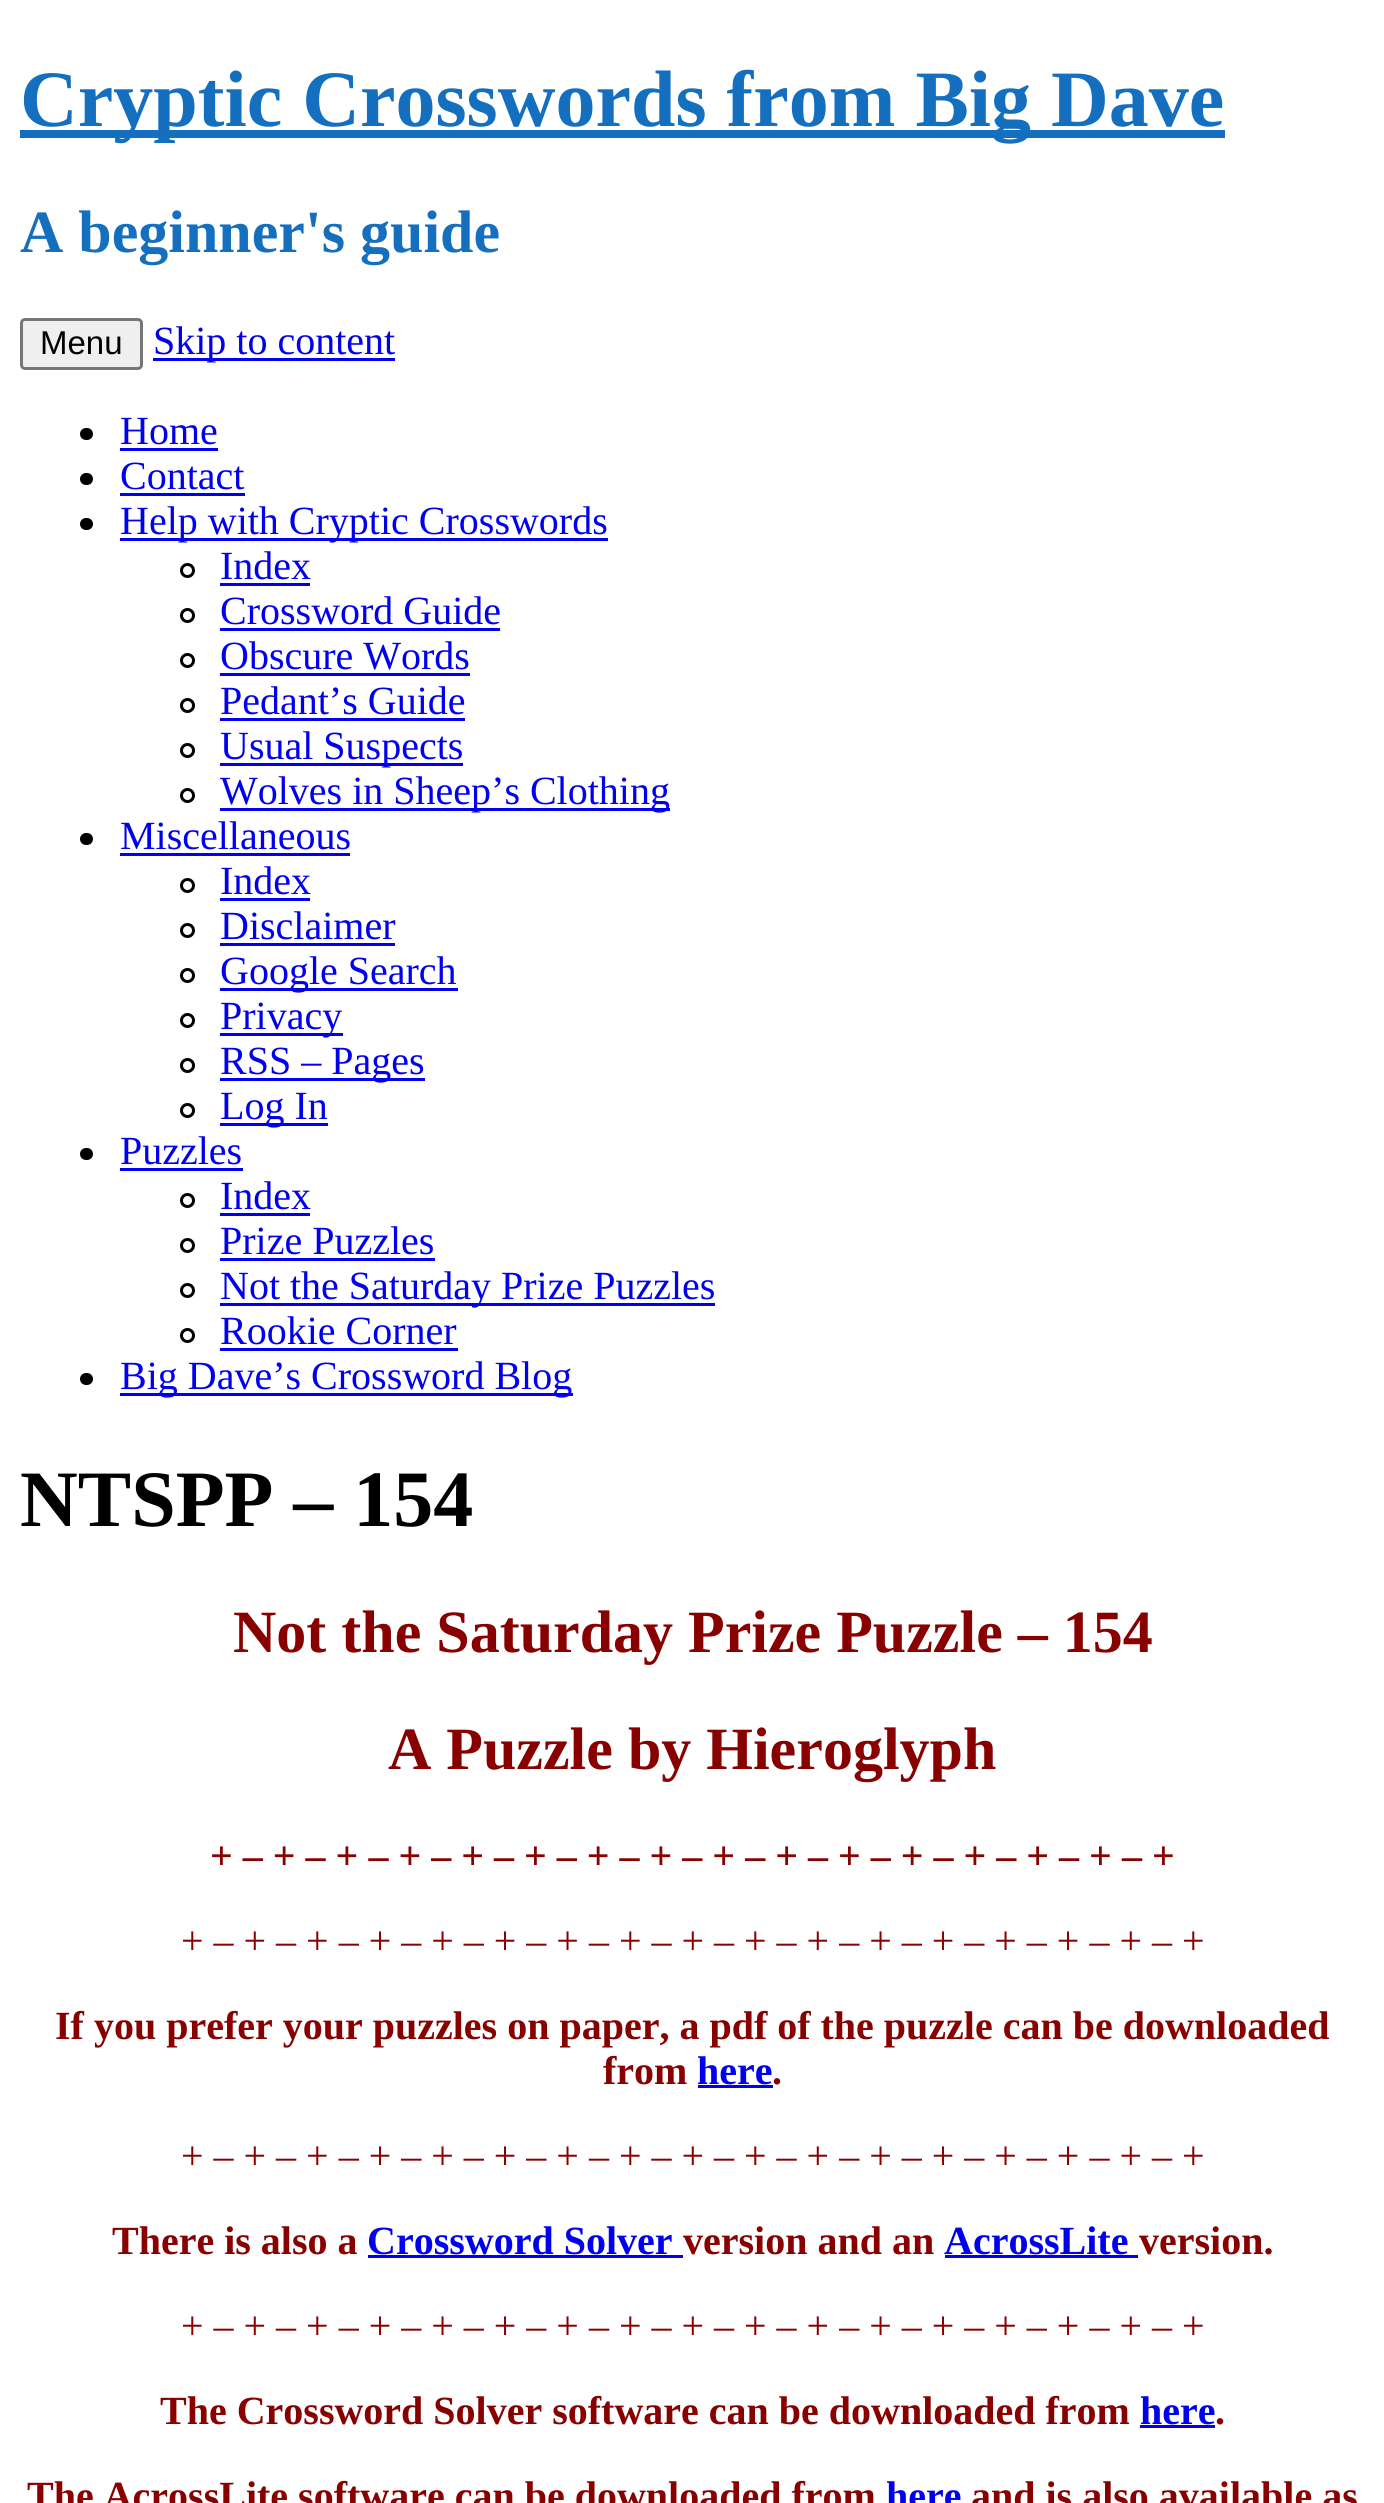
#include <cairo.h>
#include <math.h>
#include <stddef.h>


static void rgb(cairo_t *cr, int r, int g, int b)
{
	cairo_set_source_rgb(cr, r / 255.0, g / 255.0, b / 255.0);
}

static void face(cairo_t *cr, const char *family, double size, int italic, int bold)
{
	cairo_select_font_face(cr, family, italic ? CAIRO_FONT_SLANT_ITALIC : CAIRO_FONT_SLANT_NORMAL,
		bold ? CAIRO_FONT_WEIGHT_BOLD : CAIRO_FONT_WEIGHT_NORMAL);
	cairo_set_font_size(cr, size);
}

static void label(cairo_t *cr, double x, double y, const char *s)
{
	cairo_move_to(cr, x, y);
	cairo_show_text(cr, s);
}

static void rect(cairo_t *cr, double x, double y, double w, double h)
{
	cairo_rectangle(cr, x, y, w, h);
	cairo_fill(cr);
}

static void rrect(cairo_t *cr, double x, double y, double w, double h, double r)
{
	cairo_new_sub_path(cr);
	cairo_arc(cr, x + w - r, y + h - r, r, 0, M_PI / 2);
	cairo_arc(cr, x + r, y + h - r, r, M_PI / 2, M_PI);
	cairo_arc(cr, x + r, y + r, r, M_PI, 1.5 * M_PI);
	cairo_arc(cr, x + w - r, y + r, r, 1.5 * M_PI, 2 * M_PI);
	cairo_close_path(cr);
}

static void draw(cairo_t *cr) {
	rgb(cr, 255, 255, 255);
	cairo_paint(cr);
	rgb(cr, 21, 111, 191);
	rect(cr, 20, 130, 1205, 8);
	face(cr, "Liberation Serif", 80, 0, 1);
	label(cr, 20, 126, "Cryptic Crosswords from Big Dave");
	face(cr, "Liberation Serif", 60, 0, 1);
	label(cr, 20, 252, "A beginner's guide");
	rgb(cr, 239, 239, 239);
	rrect(cr, 21.5, 319.5, 120, 49, 3.5);
	cairo_fill_preserve(cr);
	rgb(cr, 118, 118, 118);
	cairo_set_line_width(cr, 3);
	cairo_stroke(cr);
	face(cr, "Liberation Sans", 33, 0, 0);
	rgb(cr, 0, 0, 0);
	label(cr, 40, 354, "Menu");
	rgb(cr, 0, 0, 238);
	rect(cr, 153, 358, 242, 3);
	face(cr, "Liberation Serif", 40, 0, 0);
	label(cr, 153, 354, "Skip to content");
	rgb(cr, 0, 0, 0);
	rrect(cr, 80, 428, 13, 12, 6);
	cairo_fill(cr);
	rgb(cr, 0, 0, 238);
	label(cr, 120, 444, "Home");
	rect(cr, 120, 448, 98, 3);
	rgb(cr, 0, 0, 0);
	rrect(cr, 80, 473, 13, 12, 6);
	cairo_fill(cr);
	rgb(cr, 0, 0, 238);
	label(cr, 120, 489, "Contact");
	rect(cr, 120, 493, 125, 3);
	rgb(cr, 0, 0, 0);
	rrect(cr, 80, 518, 13, 12, 6);
	cairo_fill(cr);
	rgb(cr, 0, 0, 238);
	rect(cr, 120, 538, 488, 3);
	label(cr, 120, 534, "Help with Cryptic Crosswords");
	cairo_new_path(cr);
	cairo_arc(cr, 187.5, 570.5, 6, 0, 2 * M_PI);
	rgb(cr, 0, 0, 0);
	cairo_stroke(cr);
	rgb(cr, 0, 0, 238);
	label(cr, 220, 579, "Index");
	rect(cr, 220, 583, 90, 3);
	cairo_new_path(cr);
	cairo_arc(cr, 187.5, 615.5, 6, 0, 2 * M_PI);
	rgb(cr, 0, 0, 0);
	cairo_stroke(cr);
	rgb(cr, 0, 0, 238);
	label(cr, 220, 624, "Crossword Guide");
	rect(cr, 220, 628, 280, 3);
	cairo_new_path(cr);
	cairo_arc(cr, 187.5, 660.5, 6, 0, 2 * M_PI);
	rgb(cr, 0, 0, 0);
	cairo_stroke(cr);
	rgb(cr, 0, 0, 238);
	label(cr, 220, 669, "Obscure Words");
	rect(cr, 220, 673, 250, 3);
	cairo_new_path(cr);
	cairo_arc(cr, 187.5, 705.5, 6, 0, 2 * M_PI);
	rgb(cr, 0, 0, 0);
	cairo_stroke(cr);
	rgb(cr, 0, 0, 238);
	label(cr, 220, 714, "Pedant’s Guide");
	rect(cr, 220, 718, 245, 3);
	cairo_new_path(cr);
	cairo_arc(cr, 187.5, 750.5, 6, 0, 2 * M_PI);
	rgb(cr, 0, 0, 0);
	cairo_stroke(cr);
	rgb(cr, 0, 0, 238);
	rect(cr, 220, 763, 243, 3);
	label(cr, 220, 759, "Usual Suspects");
	cairo_new_path(cr);
	cairo_arc(cr, 187.5, 795.5, 6, 0, 2 * M_PI);
	rgb(cr, 0, 0, 0);
	cairo_stroke(cr);
	rgb(cr, 0, 0, 238);
	rect(cr, 220, 808, 450, 3);
	label(cr, 220, 804, "Wolves in Sheep’s Clothing");
	rgb(cr, 0, 0, 0);
	rrect(cr, 80, 833, 13, 12, 6);
	cairo_fill(cr);
	rgb(cr, 0, 0, 238);
	label(cr, 120, 849, "Miscellaneous");
	rect(cr, 120, 853, 230, 3);
	cairo_new_path(cr);
	cairo_arc(cr, 187.5, 885.5, 6, 0, 2 * M_PI);
	rgb(cr, 0, 0, 0);
	cairo_stroke(cr);
	rgb(cr, 0, 0, 238);
	label(cr, 220, 894, "Index");
	rect(cr, 220, 898, 90, 3);
	cairo_new_path(cr);
	cairo_arc(cr, 187.5, 930.5, 6, 0, 2 * M_PI);
	rgb(cr, 0, 0, 0);
	cairo_stroke(cr);
	rgb(cr, 0, 0, 238);
	label(cr, 220, 939, "Disclaimer");
	rect(cr, 220, 943, 175, 3);
	cairo_new_path(cr);
	cairo_arc(cr, 187.5, 975.5, 6, 0, 2 * M_PI);
	rgb(cr, 0, 0, 0);
	cairo_stroke(cr);
	rgb(cr, 0, 0, 238);
	rect(cr, 220, 988, 238, 3);
	label(cr, 220, 984, "Google Search");
	cairo_new_path(cr);
	cairo_arc(cr, 187.5, 1020.5, 6, 0, 2 * M_PI);
	rgb(cr, 0, 0, 0);
	cairo_stroke(cr);
	rgb(cr, 0, 0, 238);
	rect(cr, 220, 1033, 123, 3);
	label(cr, 220, 1029, "Privacy");
	cairo_new_path(cr);
	cairo_arc(cr, 187.5, 1065.5, 6, 0, 2 * M_PI);
	rgb(cr, 0, 0, 0);
	cairo_stroke(cr);
	rgb(cr, 0, 0, 238);
	rect(cr, 220, 1078, 205, 3);
	label(cr, 220, 1074, "RSS – Pages");
	cairo_new_path(cr);
	cairo_arc(cr, 187.5, 1110.5, 6, 0, 2 * M_PI);
	rgb(cr, 0, 0, 0);
	cairo_stroke(cr);
	rgb(cr, 0, 0, 238);
	rect(cr, 220, 1123, 108, 3);
	label(cr, 220, 1119, "Log In");
	rgb(cr, 0, 0, 0);
	rrect(cr, 80, 1148, 13, 12, 6);
	cairo_fill(cr);
	rgb(cr, 0, 0, 238);
	label(cr, 120, 1164, "Puzzles");
	rect(cr, 120, 1168, 123, 3);
	cairo_new_path(cr);
	cairo_arc(cr, 187.5, 1200.5, 6, 0, 2 * M_PI);
	rgb(cr, 0, 0, 0);
	cairo_stroke(cr);
	rgb(cr, 0, 0, 238);
	label(cr, 220, 1209, "Index");
	rect(cr, 220, 1213, 90, 3);
	cairo_new_path(cr);
	cairo_arc(cr, 187.5, 1245.5, 6, 0, 2 * M_PI);
	rgb(cr, 0, 0, 0);
	cairo_stroke(cr);
	rgb(cr, 0, 0, 238);
	label(cr, 220, 1254, "Prize Puzzles");
	rect(cr, 220, 1258, 215, 3);
	cairo_new_path(cr);
	cairo_arc(cr, 187.5, 1290.5, 6, 0, 2 * M_PI);
	rgb(cr, 0, 0, 0);
	cairo_stroke(cr);
	rgb(cr, 0, 0, 238);
	rect(cr, 220, 1303, 495, 3);
	label(cr, 220, 1299, "Not the Saturday Prize Puzzles");
	cairo_new_path(cr);
	cairo_arc(cr, 187.5, 1335.5, 6, 0, 2 * M_PI);
	rgb(cr, 0, 0, 0);
	cairo_stroke(cr);
	rgb(cr, 0, 0, 238);
	label(cr, 220, 1344, "Rookie Corner");
	rect(cr, 220, 1348, 238, 3);
	rgb(cr, 0, 0, 0);
	rrect(cr, 80, 1373, 13, 12, 6);
	cairo_fill(cr);
	rgb(cr, 0, 0, 238);
	rect(cr, 120, 1393, 453, 3);
	label(cr, 120, 1389, "Big Dave’s Crossword Blog");
	face(cr, "Liberation Serif", 80, 0, 1);
	rgb(cr, 0, 0, 0);
	label(cr, 20, 1526, "NTSPP – 154");
	face(cr, "Liberation Serif", 60, 0, 1);
	rgb(cr, 136, 0, 0);
	label(cr, 233, 1652, "Not the Saturday Prize Puzzle – 154");
	label(cr, 388, 1769, "A Puzzle by Hieroglyph");
	face(cr, "Liberation Serif", 40, 0, 1);
	label(cr, 210, 1869, "+ – + – + – + – + – + – + – + – + – + – + – + – + – + – + – +");
	face(cr, "Liberation Serif", 40, 0, 0);
	label(cr, 181, 1954, "+ – + – + – + – + – + – + – + – + – + – + – + – + – + – + – + – +");
	face(cr, "Liberation Serif", 40, 0, 1);
	label(cr, 55, 2039, "If you prefer your puzzles on paper, a pdf of the puzzle can be downloaded");
	label(cr, 603, 2084, "from");
	rgb(cr, 0, 0, 238);
	label(cr, 697, 2084, "here");
	rect(cr, 698, 2085, 75, 3);
	rgb(cr, 136, 0, 0);
	label(cr, 772, 2084, ".");
	face(cr, "Liberation Serif", 40, 0, 0);
	label(cr, 181, 2169, "+ – + – + – + – + – + – + – + – + – + – + – + – + – + – + – + – +");
	face(cr, "Liberation Serif", 40, 0, 1);
	label(cr, 112, 2254, "There is also a");
	rgb(cr, 0, 0, 238);
	label(cr, 367, 2254, "Crossword Solver");
	rect(cr, 368, 2255, 315, 3);
	rgb(cr, 136, 0, 0);
	label(cr, 683, 2254, "version and an");
	rgb(cr, 0, 0, 238);
	label(cr, 944, 2254, "AcrossLite");
	rect(cr, 945, 2255, 193, 3);
	rgb(cr, 136, 0, 0);
	label(cr, 1139, 2254, "version.");
	face(cr, "Liberation Serif", 40, 0, 0);
	label(cr, 181, 2339, "+ – + – + – + – + – + – + – + – + – + – + – + – + – + – + – + – +");
	face(cr, "Liberation Serif", 40, 0, 1);
	label(cr, 160, 2424, "The Crossword Solver software can be downloaded from");
	rgb(cr, 0, 0, 238);
	label(cr, 1140, 2424, "here");
	rect(cr, 1140, 2425, 75, 3);
	rgb(cr, 136, 0, 0);
	label(cr, 1215, 2424, ".");
	label(cr, 27, 2509, "The AcrossLite software can be downloaded from");
	rgb(cr, 0, 0, 238);
	label(cr, 886, 2509, "here");
	rgb(cr, 136, 0, 0);
	label(cr, 971, 2509, "and is also available as");
}

int main(void) {
	cairo_surface_t *surface = cairo_image_surface_create(CAIRO_FORMAT_RGB24, 1384, 2503);
	cairo_t *cr = cairo_create(surface);
	cairo_font_options_t *options = cairo_font_options_create();
	cairo_font_options_set_hint_metrics(options, CAIRO_HINT_METRICS_OFF);
	cairo_font_options_set_hint_style(options, CAIRO_HINT_STYLE_NONE);
	cairo_set_font_options(cr, options);
	cairo_set_miter_limit(cr, 4);
	draw(cr);
	cairo_surface_write_to_png(surface, "render.png");
	cairo_font_options_destroy(options);
	cairo_destroy(cr);
	cairo_surface_destroy(surface);
	return 0;
}
